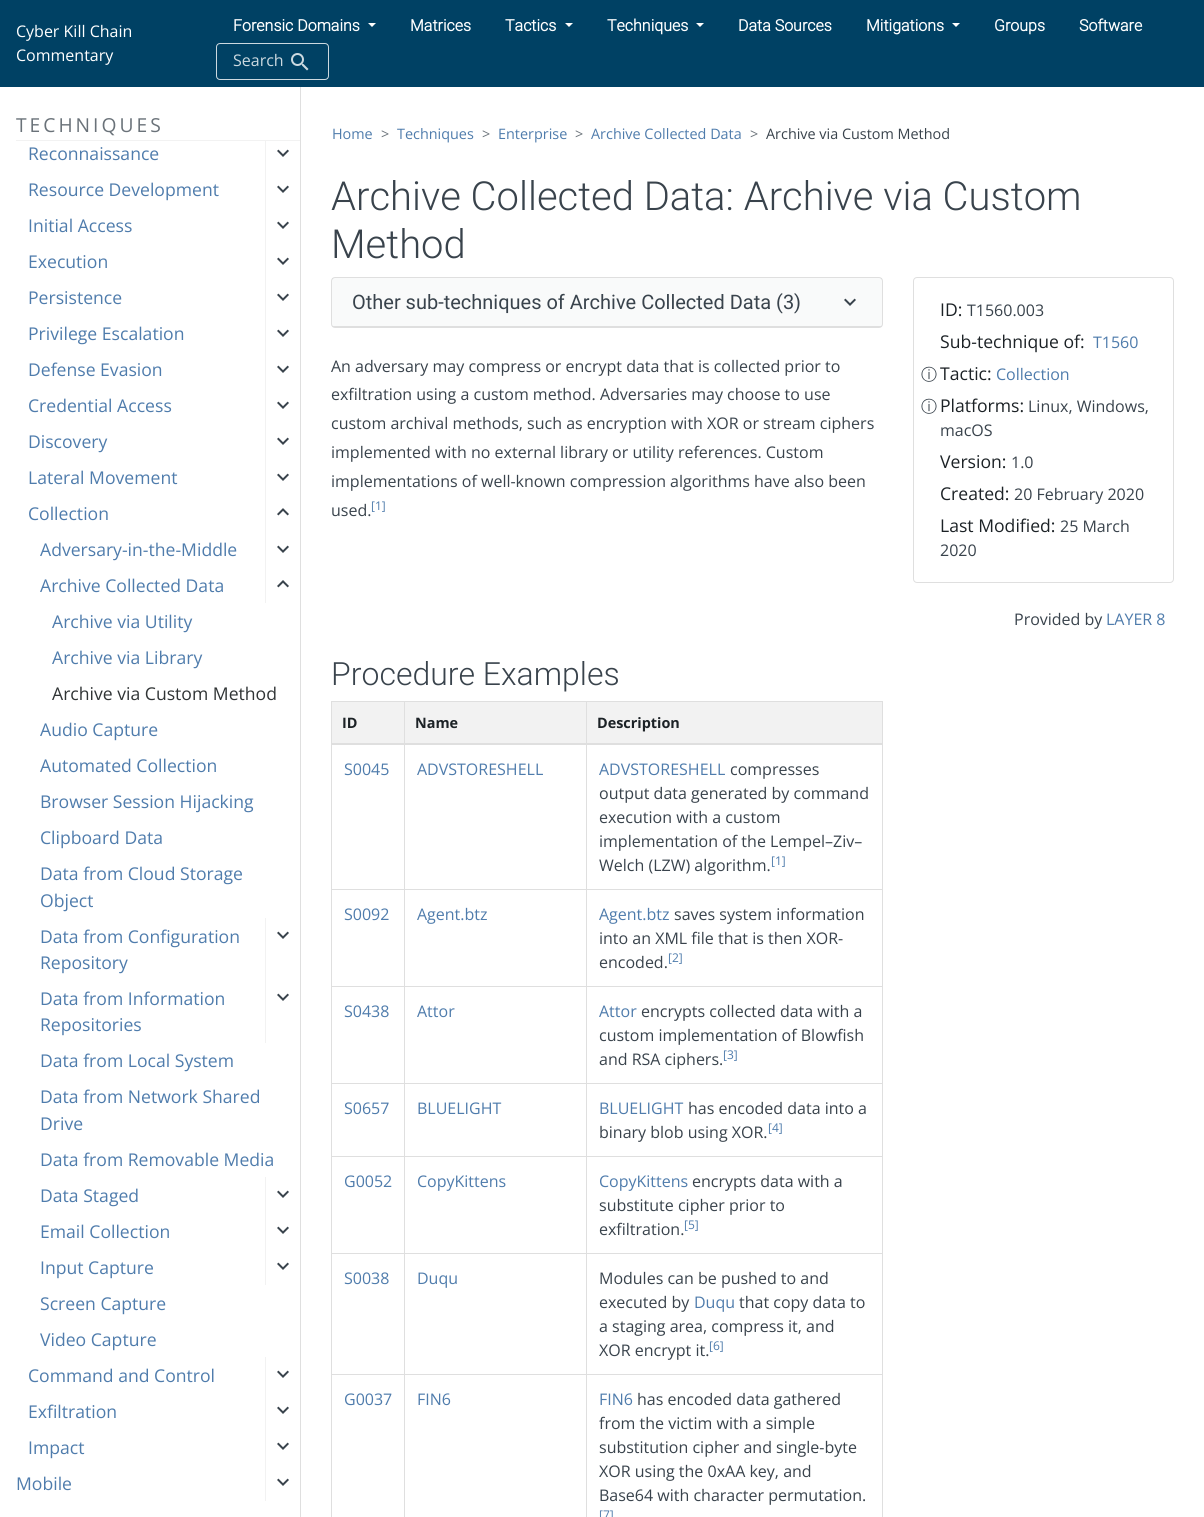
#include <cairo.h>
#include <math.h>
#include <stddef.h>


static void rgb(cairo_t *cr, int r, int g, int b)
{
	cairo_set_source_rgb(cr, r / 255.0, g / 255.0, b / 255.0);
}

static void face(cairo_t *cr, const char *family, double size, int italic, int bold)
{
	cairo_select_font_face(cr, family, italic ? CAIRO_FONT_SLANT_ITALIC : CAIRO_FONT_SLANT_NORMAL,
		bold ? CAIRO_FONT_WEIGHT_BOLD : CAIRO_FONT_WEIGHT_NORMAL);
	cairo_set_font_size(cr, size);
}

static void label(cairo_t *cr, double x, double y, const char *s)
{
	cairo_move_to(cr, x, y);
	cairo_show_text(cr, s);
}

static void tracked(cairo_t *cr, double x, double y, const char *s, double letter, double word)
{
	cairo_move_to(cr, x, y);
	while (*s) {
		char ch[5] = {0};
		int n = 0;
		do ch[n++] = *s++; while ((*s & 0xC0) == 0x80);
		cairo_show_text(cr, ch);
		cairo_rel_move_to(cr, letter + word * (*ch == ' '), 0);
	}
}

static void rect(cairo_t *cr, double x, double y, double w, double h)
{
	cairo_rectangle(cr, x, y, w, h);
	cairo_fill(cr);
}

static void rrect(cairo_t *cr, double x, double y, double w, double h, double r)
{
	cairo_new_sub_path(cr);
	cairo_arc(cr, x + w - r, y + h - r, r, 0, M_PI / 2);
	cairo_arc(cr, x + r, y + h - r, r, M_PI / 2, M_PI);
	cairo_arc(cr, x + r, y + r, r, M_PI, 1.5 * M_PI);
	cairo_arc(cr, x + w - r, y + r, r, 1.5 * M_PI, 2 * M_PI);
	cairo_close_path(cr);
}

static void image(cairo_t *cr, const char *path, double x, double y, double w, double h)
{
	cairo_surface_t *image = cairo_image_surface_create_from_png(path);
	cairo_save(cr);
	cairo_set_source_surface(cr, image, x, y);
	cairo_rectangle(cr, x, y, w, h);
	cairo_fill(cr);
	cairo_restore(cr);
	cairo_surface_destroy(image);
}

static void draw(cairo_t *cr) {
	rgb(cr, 255, 255, 255);
	cairo_paint(cr);
	rgb(cr, 0, 65, 100);
	rect(cr, 0, 0, 1204, 87);
	face(cr, "Open Sans", 16, 0, 0);
	rgb(cr, 255, 255, 255);
	label(cr, 16, 37, "Cyber Kill Chain");
	label(cr, 16, 61, "Commentary");
	face(cr, "Roboto", 16, 0, 1);
	label(cr, 233, 31, "Forensic Domains");
	cairo_new_path(cr);
	cairo_move_to(cr, 368, 23);
	cairo_line_to(cr, 376, 23);
	cairo_line_to(cr, 372, 27);
	cairo_close_path(cr);
	cairo_fill(cr);
	label(cr, 410, 31, "Matrices");
	label(cr, 505, 31, "Tactics");
	cairo_new_path(cr);
	cairo_move_to(cr, 565, 23);
	cairo_line_to(cr, 573, 23);
	cairo_line_to(cr, 569, 27);
	cairo_close_path(cr);
	cairo_fill(cr);
	label(cr, 607, 31, "Techniques");
	cairo_new_path(cr);
	cairo_move_to(cr, 696, 23);
	cairo_line_to(cr, 704, 23);
	cairo_line_to(cr, 700, 27);
	cairo_close_path(cr);
	cairo_fill(cr);
	label(cr, 738, 31, "Data Sources");
	label(cr, 866, 31, "Mitigations");
	cairo_new_path(cr);
	cairo_move_to(cr, 952, 23);
	cairo_line_to(cr, 960, 23);
	cairo_line_to(cr, 956, 27);
	cairo_close_path(cr);
	cairo_fill(cr);
	label(cr, 994, 31, "Groups");
	label(cr, 1079, 31, "Software");
	rrect(cr, 216.5, 43.5, 112, 36, 3.5);
	rgb(cr, 204, 217, 224);
	cairo_set_line_width(cr, 1);
	cairo_stroke(cr);
	face(cr, "Open Sans", 16, 0, 0);
	label(cr, 233, 66, "Search");
	image(cr, "image0.png", 291, 53, 18, 18);
	rgb(cr, 223, 223, 223);
	rect(cr, 300, 87, 1, 1430);
	rgb(cr, 242, 242, 242);
	rect(cr, 16, 140, 284, 1);
	face(cr, "Open Sans", 19.25, 0, 0);
	rgb(cr, 106, 114, 121);
	tracked(cr, 16, 132, "TECHNIQUES", 3, 0);
	face(cr, "Open Sans", 17.6, 0, 0);
	rgb(cr, 79, 124, 172);
	label(cr, 28, 160, "Reconnaissance");
	rgb(cr, 242, 242, 242);
	rect(cr, 265, 141, 1, 462);
	image(cr, "image1.png", 277, 149, 12, 8);
	rgb(cr, 79, 124, 172);
	label(cr, 28, 196, "Resource Development");
	image(cr, "image1.png", 277, 185, 12, 8);
	label(cr, 28, 232, "Initial Access");
	image(cr, "image1.png", 277, 221, 12, 8);
	label(cr, 28, 268, "Execution");
	image(cr, "image1.png", 277, 257, 12, 8);
	label(cr, 28, 304, "Persistence");
	image(cr, "image1.png", 277, 293, 12, 8);
	label(cr, 28, 340, "Privilege Escalation");
	image(cr, "image1.png", 277, 329, 12, 8);
	label(cr, 28, 376, "Defense Evasion");
	image(cr, "image1.png", 277, 365, 12, 8);
	label(cr, 28, 412, "Credential Access");
	image(cr, "image1.png", 277, 401, 12, 8);
	label(cr, 28, 448, "Discovery");
	image(cr, "image1.png", 277, 437, 12, 8);
	label(cr, 28, 484, "Lateral Movement");
	image(cr, "image1.png", 277, 473, 12, 8);
	label(cr, 28, 520, "Collection");
	image(cr, "image2.png", 277, 508, 12, 8);
	label(cr, 40, 556, "Adversary-in-the-Middle");
	image(cr, "image1.png", 277, 545, 12, 8);
	label(cr, 40, 592, "Archive Collected Data");
	image(cr, "image3.png", 277, 580, 12, 8);
	label(cr, 52, 628, "Archive via Utility");
	label(cr, 52, 664, "Archive via Library");
	rgb(cr, 48, 52, 53);
	label(cr, 52, 700, "Archive via Custom Method");
	rgb(cr, 79, 124, 172);
	label(cr, 40, 736, "Audio Capture");
	label(cr, 40, 772, "Automated Collection");
	label(cr, 40, 808, "Browser Session Hijacking");
	label(cr, 40, 844, "Clipboard Data");
	label(cr, 40, 880, "Data from Cloud Storage");
	label(cr, 40, 907, "Object");
	label(cr, 40, 943, "Data from Configuration");
	label(cr, 40, 969, "Repository");
	rgb(cr, 242, 242, 242);
	rect(cr, 265, 918, 1, 125);
	image(cr, "image1.png", 277, 931, 12, 8);
	rgb(cr, 79, 124, 172);
	label(cr, 40, 1005, "Data from Information");
	label(cr, 40, 1031, "Repositories");
	image(cr, "image1.png", 277, 993, 12, 8);
	label(cr, 40, 1067, "Data from Local System");
	label(cr, 40, 1103, "Data from Network Shared");
	label(cr, 40, 1130, "Drive");
	label(cr, 40, 1166, "Data from Removable Media");
	label(cr, 40, 1202, "Data Staged");
	rgb(cr, 242, 242, 242);
	rect(cr, 265, 1177, 1, 108);
	image(cr, "image1.png", 277, 1190, 12, 8);
	rgb(cr, 79, 124, 172);
	label(cr, 40, 1238, "Email Collection");
	image(cr, "image1.png", 277, 1226, 12, 8);
	label(cr, 40, 1274, "Input Capture");
	image(cr, "image1.png", 277, 1262, 12, 8);
	label(cr, 40, 1310, "Screen Capture");
	label(cr, 40, 1346, "Video Capture");
	label(cr, 28, 1382, "Command and Control");
	rgb(cr, 242, 242, 242);
	rect(cr, 265, 1357, 1, 144);
	image(cr, "image1.png", 277, 1370, 12, 8);
	rgb(cr, 79, 124, 172);
	label(cr, 28, 1418, "Exfiltration");
	image(cr, "image1.png", 277, 1406, 12, 8);
	label(cr, 28, 1454, "Impact");
	image(cr, "image1.png", 277, 1442, 12, 8);
	label(cr, 16, 1490, "Mobile");
	image(cr, "image1.png", 277, 1478, 12, 8);
	face(cr, "Open Sans", 14.4, 0, 0);
	label(cr, 332, 139, "Home");
	rgb(cr, 106, 114, 121);
	label(cr, 381, 139, ">");
	rgb(cr, 79, 124, 172);
	label(cr, 397, 139, "Techniques");
	rgb(cr, 106, 114, 121);
	label(cr, 482, 139, ">");
	rgb(cr, 79, 124, 172);
	label(cr, 498, 139, "Enterprise");
	rgb(cr, 106, 114, 121);
	label(cr, 575, 139, ">");
	rgb(cr, 79, 124, 172);
	label(cr, 591, 139, "Archive Collected Data");
	rgb(cr, 106, 114, 121);
	label(cr, 750, 139, ">");
	rgb(cr, 57, 67, 76);
	label(cr, 766, 139, "Archive via Custom Method");
	face(cr, "Roboto Light", 40, 0, 0);
	label(cr, 331, 210, "Archive Collected Data: Archive via Custom");
	label(cr, 331, 258, "Method");
	rrect(cr, 331.5, 277.5, 551, 50, 3.5);
	rgb(cr, 223, 223, 223);
	cairo_stroke(cr);
	cairo_set_source_rgba(cr, 0.224, 0.263, 0.298, 0.03);
	rect(cr, 332, 278, 550, 48);
	rgb(cr, 223, 223, 223);
	rect(cr, 332, 326, 550, 1);
	face(cr, "Roboto", 20, 0, 0);
	rgb(cr, 57, 67, 76);
	label(cr, 352, 309, "Other sub-techniques of Archive Collected Data (3)");
	image(cr, "image4.png", 844, 298, 12, 8);
	face(cr, "Open Sans", 16, 0, 0);
	label(cr, 331, 372, "An adversary may compress or encrypt data that is collected prior to");
	label(cr, 331, 400, "exfiltration using a custom method. Adversaries may choose to use");
	label(cr, 331, 429, "custom archival methods, such as encryption with XOR or stream ciphers");
	label(cr, 331, 458, "implemented with no external library or utility references. Custom");
	label(cr, 331, 487, "implementations of well-known compression algorithms have also been");
	label(cr, 331, 516, "used.");
	face(cr, "Open Sans", 12, 0, 0);
	rgb(cr, 79, 124, 172);
	label(cr, 371, 510, "[1]");
	rrect(cr, 913.5, 277.5, 260, 305, 3.5);
	rgb(cr, 223, 223, 223);
	cairo_stroke(cr);
	face(cr, "Open Sans", 17.6, 0, 0);
	rgb(cr, 28, 34, 38);
	label(cr, 940, 316, "ID:");
	face(cr, "Open Sans", 16, 0, 0);
	rgb(cr, 57, 67, 76);
	label(cr, 967, 316, "T1560.003");
	face(cr, "Open Sans", 17.6, 0, 0);
	rgb(cr, 28, 34, 38);
	label(cr, 940, 348, "Sub-technique of:");
	face(cr, "Open Sans", 16, 0, 0);
	rgb(cr, 79, 124, 172);
	label(cr, 1093, 348, "T1560");
	face(cr, "WenQuanYi Zen Hei Medium", 16, 0, 0);
	rgb(cr, 57, 67, 76);
	label(cr, 921, 380, "ⓘ");
	face(cr, "Open Sans", 17.6, 0, 0);
	rgb(cr, 28, 34, 38);
	label(cr, 940, 380, "Tactic:");
	face(cr, "Open Sans", 16, 0, 0);
	rgb(cr, 79, 124, 172);
	label(cr, 996, 380, "Collection");
	face(cr, "WenQuanYi Zen Hei Medium", 16, 0, 0);
	rgb(cr, 57, 67, 76);
	label(cr, 921, 412, "ⓘ");
	face(cr, "Open Sans", 17.6, 0, 0);
	rgb(cr, 28, 34, 38);
	label(cr, 940, 412, "Platforms:");
	face(cr, "Open Sans", 16, 0, 0);
	rgb(cr, 57, 67, 76);
	label(cr, 1028, 412, "Linux, Windows,");
	label(cr, 940, 436, "macOS");
	face(cr, "Open Sans", 17.6, 0, 0);
	rgb(cr, 28, 34, 38);
	label(cr, 940, 468, "Version:");
	face(cr, "Open Sans", 16, 0, 0);
	rgb(cr, 57, 67, 76);
	label(cr, 1011, 468, "1.0");
	face(cr, "Open Sans", 17.6, 0, 0);
	rgb(cr, 28, 34, 38);
	label(cr, 940, 500, "Created:");
	face(cr, "Open Sans", 16, 0, 0);
	rgb(cr, 57, 67, 76);
	label(cr, 1014, 500, "20 February 2020");
	face(cr, "Open Sans", 17.6, 0, 0);
	rgb(cr, 28, 34, 38);
	label(cr, 940, 532, "Last Modified:");
	face(cr, "Open Sans", 16, 0, 0);
	rgb(cr, 57, 67, 76);
	label(cr, 1060, 532, "25 March");
	label(cr, 940, 556, "2020");
	label(cr, 1014, 625, "Provided by");
	rgb(cr, 79, 124, 172);
	label(cr, 1106, 625, "LAYER 8");
	face(cr, "Roboto Light", 32, 0, 0);
	rgb(cr, 57, 67, 76);
	label(cr, 331, 685, "Procedure Examples");
	rgb(cr, 242, 242, 242);
	rect(cr, 332, 702, 550, 41);
	rgb(cr, 223, 223, 223);
	rect(cr, 331, 701, 552, 1);
	rect(cr, 882, 701, 1, 816);
	rect(cr, 331, 701, 1, 816);
	face(cr, "Open Sans", 14.4, 0, 1);
	rgb(cr, 28, 34, 38);
	label(cr, 342, 728, "ID");
	label(cr, 415, 728, "Name");
	rgb(cr, 223, 223, 223);
	rect(cr, 586, 889, 297, 1);
	rect(cr, 586, 986, 297, 1);
	rect(cr, 586, 1083, 297, 1);
	rect(cr, 586, 1156, 297, 1);
	rect(cr, 586, 1253, 297, 1);
	rect(cr, 586, 1374, 297, 1);
	rect(cr, 586, 1374, 1, 143);
	rect(cr, 404, 1374, 183, 1);
	rect(cr, 586, 1253, 1, 122);
	rect(cr, 404, 1253, 183, 1);
	rect(cr, 586, 1156, 1, 98);
	rect(cr, 404, 1156, 183, 1);
	rect(cr, 586, 1083, 1, 74);
	rect(cr, 404, 1083, 183, 1);
	rect(cr, 586, 986, 1, 98);
	rect(cr, 404, 986, 183, 1);
	rect(cr, 586, 889, 1, 98);
	rect(cr, 404, 889, 183, 1);
	rect(cr, 404, 1374, 1, 143);
	rect(cr, 331, 1374, 74, 1);
	rect(cr, 404, 1253, 1, 122);
	rect(cr, 331, 1253, 74, 1);
	rect(cr, 404, 1156, 1, 98);
	rect(cr, 331, 1156, 74, 1);
	rect(cr, 404, 1083, 1, 74);
	rect(cr, 331, 1083, 74, 1);
	rect(cr, 404, 986, 1, 98);
	rect(cr, 331, 986, 74, 1);
	rect(cr, 404, 889, 1, 98);
	rect(cr, 331, 889, 74, 1);
	rect(cr, 404, 701, 1, 189);
	rect(cr, 586, 701, 1, 189);
	rect(cr, 331, 743, 552, 2);
	rgb(cr, 28, 34, 38);
	label(cr, 597, 728, "Description");
	face(cr, "Open Sans", 16, 0, 0);
	rgb(cr, 79, 124, 172);
	label(cr, 344, 775, "S0045");
	label(cr, 417, 775, "ADVSTORESHELL");
	label(cr, 599, 775, "ADVSTORESHELL");
	rgb(cr, 57, 67, 76);
	label(cr, 730, 775, "compresses");
	label(cr, 599, 799, "output data generated by command");
	label(cr, 599, 823, "execution with a custom");
	label(cr, 599, 847, "implementation of the Lempel–Ziv–");
	label(cr, 599, 871, "Welch (LZW) algorithm.");
	face(cr, "Open Sans", 12, 0, 0);
	rgb(cr, 79, 124, 172);
	label(cr, 771, 865, "[1]");
	face(cr, "Open Sans", 16, 0, 0);
	label(cr, 344, 920, "S0092");
	label(cr, 417, 920, "Agent.btz");
	label(cr, 599, 920, "Agent.btz");
	rgb(cr, 57, 67, 76);
	label(cr, 674, 920, "saves system information");
	label(cr, 599, 944, "into an XML file that is then XOR-");
	label(cr, 599, 968, "encoded.");
	face(cr, "Open Sans", 12, 0, 0);
	rgb(cr, 79, 124, 172);
	label(cr, 668, 962, "[2]");
	face(cr, "Open Sans", 16, 0, 0);
	label(cr, 344, 1017, "S0438");
	label(cr, 417, 1017, "Attor");
	label(cr, 599, 1017, "Attor");
	rgb(cr, 57, 67, 76);
	label(cr, 641, 1017, "encrypts collected data with a");
	label(cr, 599, 1041, "custom implementation of Blowfish");
	label(cr, 599, 1065, "and RSA ciphers.");
	face(cr, "Open Sans", 12, 0, 0);
	rgb(cr, 79, 124, 172);
	label(cr, 723, 1059, "[3]");
	face(cr, "Open Sans", 16, 0, 0);
	label(cr, 344, 1114, "S0657");
	label(cr, 417, 1114, "BLUELIGHT");
	label(cr, 599, 1114, "BLUELIGHT");
	rgb(cr, 57, 67, 76);
	label(cr, 688, 1114, "has encoded data into a");
	label(cr, 599, 1138, "binary blob using XOR.");
	face(cr, "Open Sans", 12, 0, 0);
	rgb(cr, 79, 124, 172);
	label(cr, 768, 1132, "[4]");
	face(cr, "Open Sans", 16, 0, 0);
	label(cr, 344, 1187, "G0052");
	label(cr, 417, 1187, "CopyKittens");
	label(cr, 599, 1187, "CopyKittens");
	rgb(cr, 57, 67, 76);
	label(cr, 692, 1187, "encrypts data with a");
	label(cr, 599, 1211, "substitute cipher prior to");
	label(cr, 599, 1235, "exfiltration.");
	face(cr, "Open Sans", 12, 0, 0);
	rgb(cr, 79, 124, 172);
	label(cr, 684, 1229, "[5]");
	face(cr, "Open Sans", 16, 0, 0);
	label(cr, 344, 1284, "S0038");
	label(cr, 417, 1284, "Duqu");
	rgb(cr, 57, 67, 76);
	label(cr, 599, 1284, "Modules can be pushed to and");
	label(cr, 599, 1308, "executed by");
	rgb(cr, 79, 124, 172);
	label(cr, 694, 1308, "Duqu");
	rgb(cr, 57, 67, 76);
	label(cr, 739, 1308, "that copy data to");
	label(cr, 599, 1332, "a staging area, compress it, and");
	label(cr, 599, 1356, "XOR encrypt it.");
	face(cr, "Open Sans", 12, 0, 0);
	rgb(cr, 79, 124, 172);
	label(cr, 709, 1350, "[6]");
	face(cr, "Open Sans", 16, 0, 0);
	label(cr, 344, 1405, "G0037");
	label(cr, 417, 1405, "FIN6");
	label(cr, 599, 1405, "FIN6");
	rgb(cr, 57, 67, 76);
	label(cr, 637, 1405, "has encoded data gathered");
	label(cr, 599, 1429, "from the victim with a simple");
	label(cr, 599, 1453, "substitution cipher and single-byte");
	label(cr, 599, 1477, "XOR using the 0xAA key, and");
	label(cr, 599, 1501, "Base64 with character permutation.");
	face(cr, "Open Sans", 12, 0, 0);
	rgb(cr, 79, 124, 172);
	label(cr, 599, 1519, "[7]");
}

int main(void) {
	cairo_surface_t *surface = cairo_image_surface_create(CAIRO_FORMAT_RGB24, 1204, 1517);
	cairo_t *cr = cairo_create(surface);
	cairo_font_options_t *options = cairo_font_options_create();
	cairo_font_options_set_hint_metrics(options, CAIRO_HINT_METRICS_OFF);
	cairo_font_options_set_hint_style(options, CAIRO_HINT_STYLE_NONE);
	cairo_set_font_options(cr, options);
	cairo_set_miter_limit(cr, 4);
	draw(cr);
	cairo_surface_write_to_png(surface, "render.png");
	cairo_font_options_destroy(options);
	cairo_destroy(cr);
	cairo_surface_destroy(surface);
	return 0;
}
